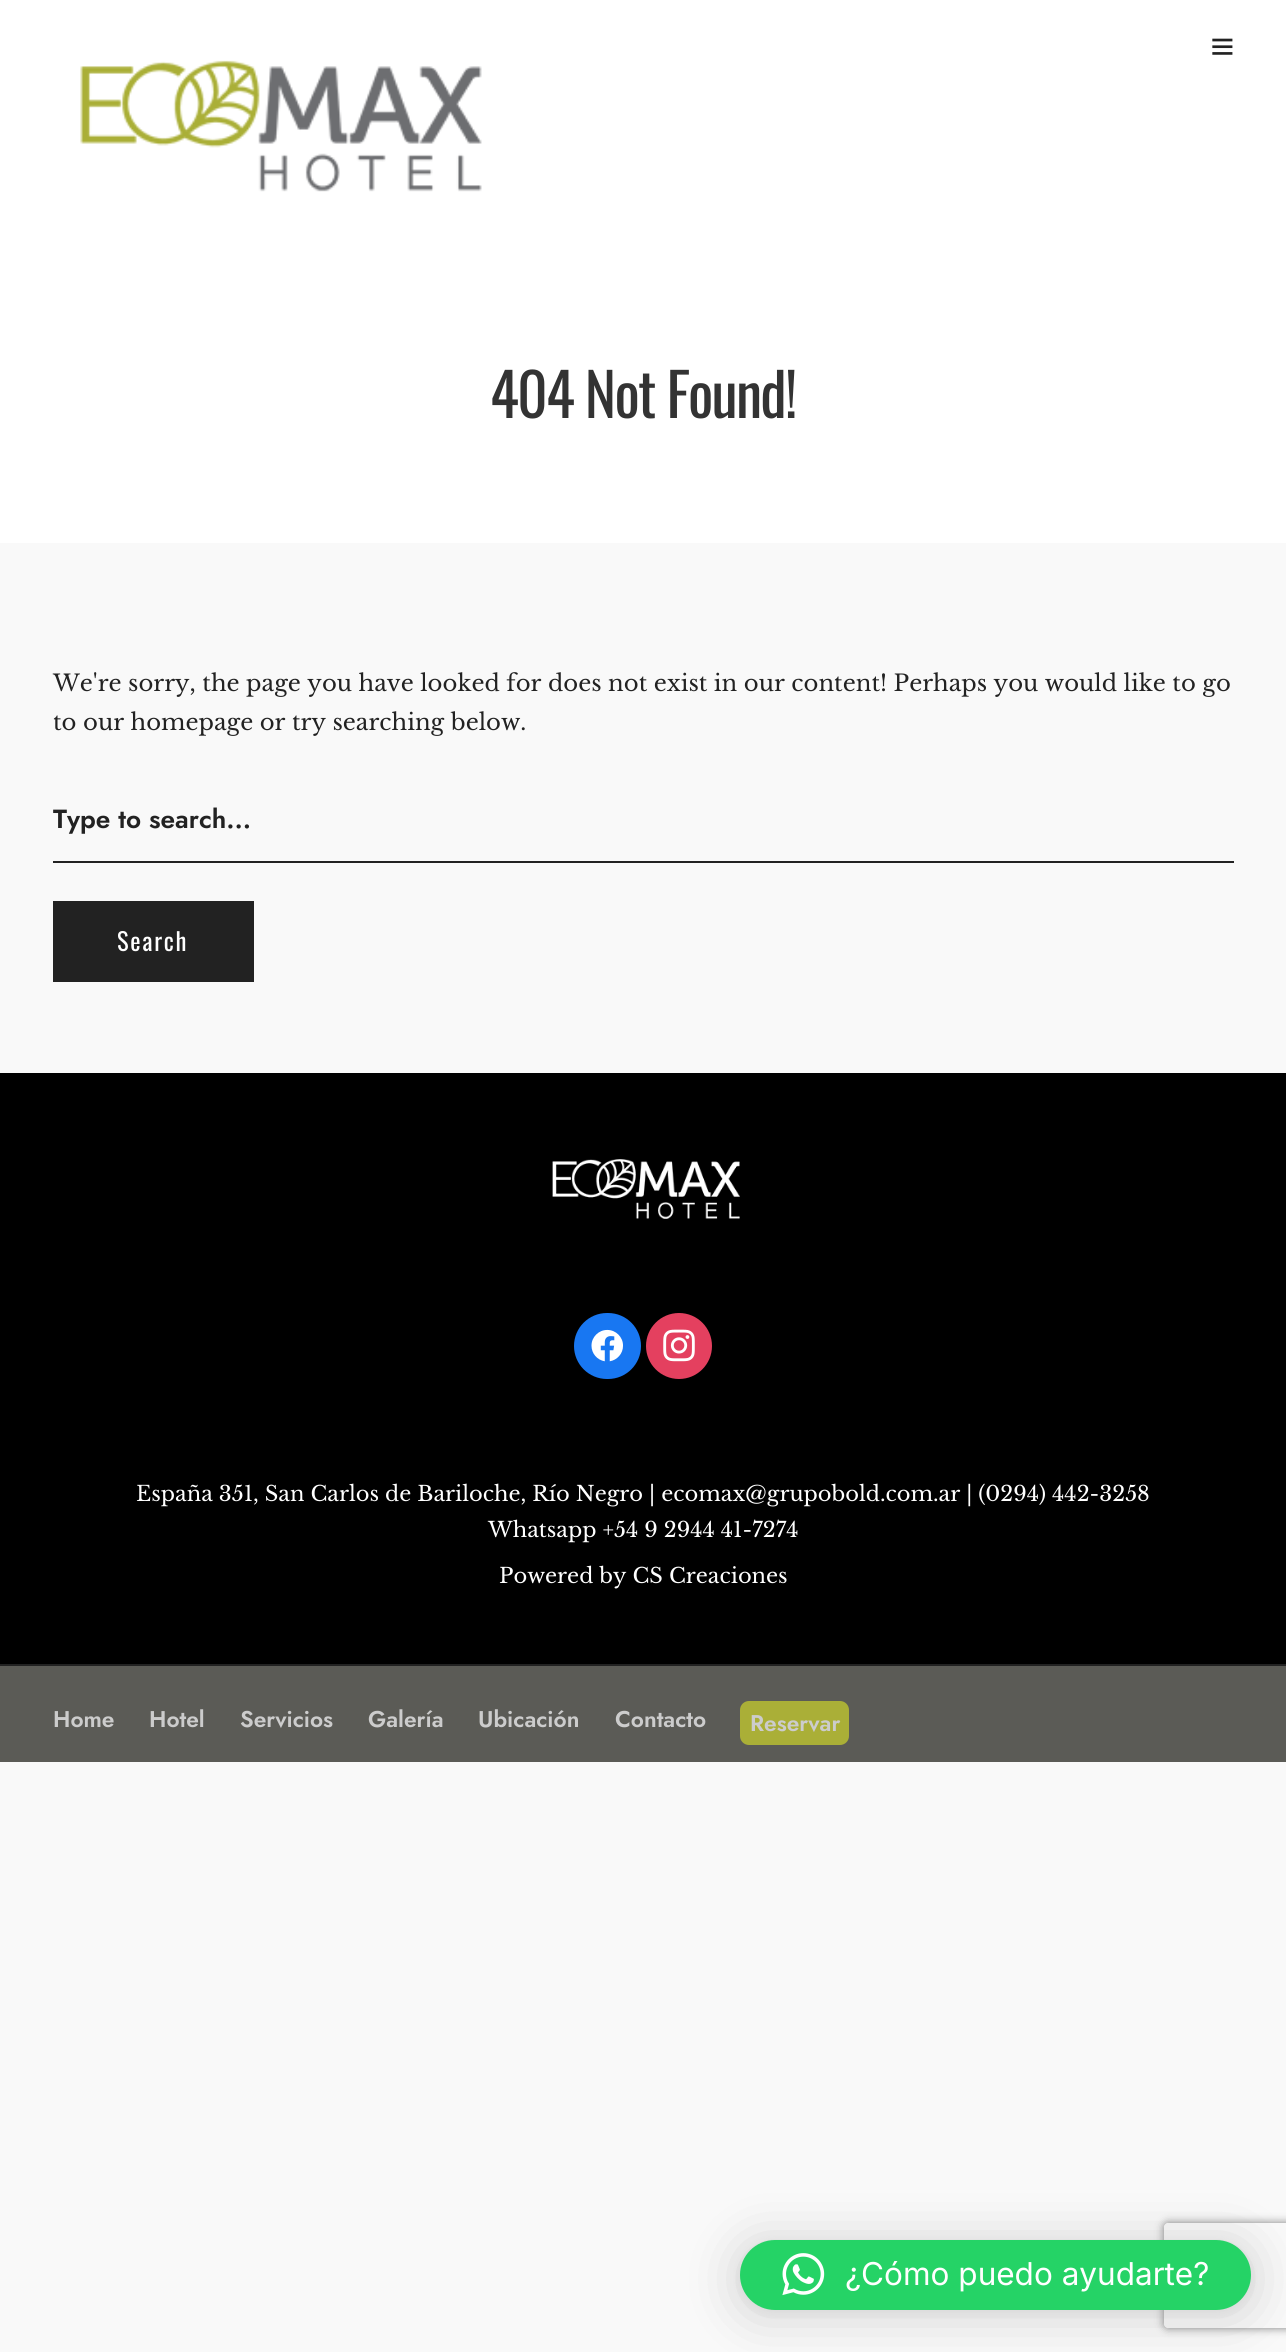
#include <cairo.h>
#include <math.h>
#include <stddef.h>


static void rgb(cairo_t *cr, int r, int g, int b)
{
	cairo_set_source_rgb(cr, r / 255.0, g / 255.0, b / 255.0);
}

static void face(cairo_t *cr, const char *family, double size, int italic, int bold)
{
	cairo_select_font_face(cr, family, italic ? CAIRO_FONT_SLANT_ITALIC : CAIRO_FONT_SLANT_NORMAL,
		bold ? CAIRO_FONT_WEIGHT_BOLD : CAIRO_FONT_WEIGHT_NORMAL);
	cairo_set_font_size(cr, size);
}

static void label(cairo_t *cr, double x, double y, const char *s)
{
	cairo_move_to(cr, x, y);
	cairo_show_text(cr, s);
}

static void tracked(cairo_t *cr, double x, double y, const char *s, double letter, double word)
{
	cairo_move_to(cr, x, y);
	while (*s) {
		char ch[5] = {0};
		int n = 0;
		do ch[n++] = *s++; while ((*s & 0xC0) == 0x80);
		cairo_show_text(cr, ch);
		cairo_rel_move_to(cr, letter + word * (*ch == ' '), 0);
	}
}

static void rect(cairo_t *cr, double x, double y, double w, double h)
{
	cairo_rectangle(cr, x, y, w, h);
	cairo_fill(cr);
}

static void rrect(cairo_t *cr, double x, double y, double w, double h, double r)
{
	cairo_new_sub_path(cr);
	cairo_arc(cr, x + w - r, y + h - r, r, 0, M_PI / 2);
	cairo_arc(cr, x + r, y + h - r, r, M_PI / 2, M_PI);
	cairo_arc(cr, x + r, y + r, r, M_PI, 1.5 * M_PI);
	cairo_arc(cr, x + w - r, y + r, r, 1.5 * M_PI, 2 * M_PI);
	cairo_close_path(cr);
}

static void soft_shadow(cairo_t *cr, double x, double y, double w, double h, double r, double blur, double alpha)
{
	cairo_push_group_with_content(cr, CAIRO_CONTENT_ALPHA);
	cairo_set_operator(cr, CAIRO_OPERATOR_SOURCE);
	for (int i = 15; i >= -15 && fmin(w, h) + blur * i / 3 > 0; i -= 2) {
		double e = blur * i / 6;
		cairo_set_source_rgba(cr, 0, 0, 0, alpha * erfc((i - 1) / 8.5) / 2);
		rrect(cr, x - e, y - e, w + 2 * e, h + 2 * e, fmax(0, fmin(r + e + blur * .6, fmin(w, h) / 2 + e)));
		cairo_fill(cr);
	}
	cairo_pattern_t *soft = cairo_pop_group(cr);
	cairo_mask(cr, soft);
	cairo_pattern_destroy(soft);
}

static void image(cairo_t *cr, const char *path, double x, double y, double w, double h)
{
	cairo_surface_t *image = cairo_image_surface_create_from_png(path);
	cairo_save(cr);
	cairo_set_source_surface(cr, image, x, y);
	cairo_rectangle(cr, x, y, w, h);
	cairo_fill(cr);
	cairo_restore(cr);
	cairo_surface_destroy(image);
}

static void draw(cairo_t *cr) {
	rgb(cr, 249, 249, 249);
	cairo_paint(cr);
	rgb(cr, 255, 255, 255);
	rect(cr, 0, 0, 1286, 543);
	image(cr, "image0.png", 1212, 38, 21, 17);
	image(cr, "image1.png", 80, 60, 402, 132);
	face(cr, "Oswald", 59.5, 0, 0);
	rgb(cr, 51, 51, 51);
	tracked(cr, 490, 418, "404 Not Found!", -1.75, 0);
	face(cr, "Libre Baskerville", 22.75, 0, 0);
	rgb(cr, 34, 34, 34);
	label(cr, 53, 691, "We're sorry, the page you have looked for does not exist in our content! Perhaps you would like to go");
	label(cr, 53, 730, "to our homepage or try searching below.");
	rect(cr, 53, 861, 1181, 2);
	cairo_save(cr);
	cairo_rectangle(cr, 53, 800, 1181, 38);
	cairo_clip(cr);
	face(cr, "Jost SemiBold", 26.25, 0, 0);
	label(cr, 53, 828, "Type to search...");
	cairo_restore(cr);
	rect(cr, 53, 901, 201, 81);
	face(cr, "Oswald", 24.5, 0, 0);
	rgb(cr, 255, 255, 255);
	tracked(cr, 117, 951, "Search", 1.75, 0);
	rgb(cr, 0, 0, 0);
	rect(cr, 0, 1073, 1286, 591);
	image(cr, "image2.png", 552, 1159, 188, 60);
	rgb(cr, 24, 119, 242);
	rrect(cr, 574, 1313, 67, 66, 33);
	cairo_fill(cr);
	image(cr, "image3.png", 591, 1329, 32, 33);
	rgb(cr, 228, 64, 95);
	cairo_arc(cr, 679, 1346, 33, 0, 2 * M_PI);
	cairo_fill(cr);
	image(cr, "image4.png", 663, 1329, 32, 33);
	face(cr, "Libre Baskerville", 21, 0, 0);
	rgb(cr, 255, 255, 255);
	label(cr, 136, 1501, "España 351, San Carlos de Bariloche, Río Negro | ecomax@grupobold.com.ar | (0294) 442-3258");
	label(cr, 488, 1537, "Whatsapp +54 9 2944 41-7274");
	label(cr, 499, 1583, "Powered by CS Creaciones");
	rgb(cr, 91, 91, 86);
	rect(cr, 0, 1666, 1286, 96);
	rgb(cr, 34, 34, 34);
	rect(cr, 0, 1664, 1286, 2);
	face(cr, "Jost SemiBold", 22.75, 0, 0);
	rgb(cr, 204, 204, 204);
	label(cr, 53, 1727, "Home");
	label(cr, 149, 1727, "Hotel");
	label(cr, 240, 1727, "Servicios");
	label(cr, 368, 1727, "Galería");
	label(cr, 478, 1727, "Ubicación");
	label(cr, 615, 1727, "Contacto");
	rgb(cr, 170, 175, 55);
	rrect(cr, 740, 1701, 109, 44, 9);
	cairo_fill(cr);
	rgb(cr, 204, 204, 204);
	label(cr, 750, 1731, "Reservar");
	rgb(cr, 0, 0, 0);
	soft_shadow(cr, 740, 2244, 511, 70, 35, 28, 0.16);
	soft_shadow(cr, 740, 2242, 511, 70, 35, 5, 0.06);
	cairo_save(cr);
	cairo_set_fill_rule(cr, CAIRO_FILL_RULE_EVEN_ODD);
	cairo_new_path(cr);
	cairo_move_to(cr, 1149, 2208);
	cairo_line_to(cr, 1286, 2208);
	cairo_line_to(cr, 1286, 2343);
	cairo_line_to(cr, 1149, 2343);
	cairo_close_path(cr);
	cairo_move_to(cr, 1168, 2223);
	cairo_line_to(cr, 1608, 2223);
	cairo_curve_to(cr, 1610, 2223, 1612, 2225, 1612, 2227);
	cairo_line_to(cr, 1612, 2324);
	cairo_curve_to(cr, 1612, 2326, 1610, 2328, 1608, 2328);
	cairo_line_to(cr, 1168, 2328);
	cairo_curve_to(cr, 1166, 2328, 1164, 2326, 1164, 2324);
	cairo_line_to(cr, 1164, 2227);
	cairo_curve_to(cr, 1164, 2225, 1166, 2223, 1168, 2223);
	cairo_close_path(cr);
	cairo_clip(cr);
	rgb(cr, 128, 128, 128);
	soft_shadow(cr, 1164, 2223, 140, 105, 4, 4.5, 1);
	cairo_restore(cr);
	rgb(cr, 37, 211, 102);
	rrect(cr, 740, 2240, 511, 70, 35);
	cairo_fill(cr);
	image(cr, "image5.png", 782, 2253, 43, 43);
	face(cr, "Inter", 31.5, 0, 0);
	rgb(cr, 255, 255, 255);
	label(cr, 845, 2285, "¿Cómo puedo ayudarte?");
}

int main(void) {
	cairo_surface_t *surface = cairo_image_surface_create(CAIRO_FORMAT_RGB24, 1286, 2352);
	cairo_t *cr = cairo_create(surface);
	cairo_font_options_t *options = cairo_font_options_create();
	cairo_font_options_set_hint_metrics(options, CAIRO_HINT_METRICS_OFF);
	cairo_font_options_set_hint_style(options, CAIRO_HINT_STYLE_NONE);
	cairo_set_font_options(cr, options);
	cairo_set_miter_limit(cr, 4);
	draw(cr);
	cairo_surface_write_to_png(surface, "render.png");
	cairo_font_options_destroy(options);
	cairo_destroy(cr);
	cairo_surface_destroy(surface);
	return 0;
}
